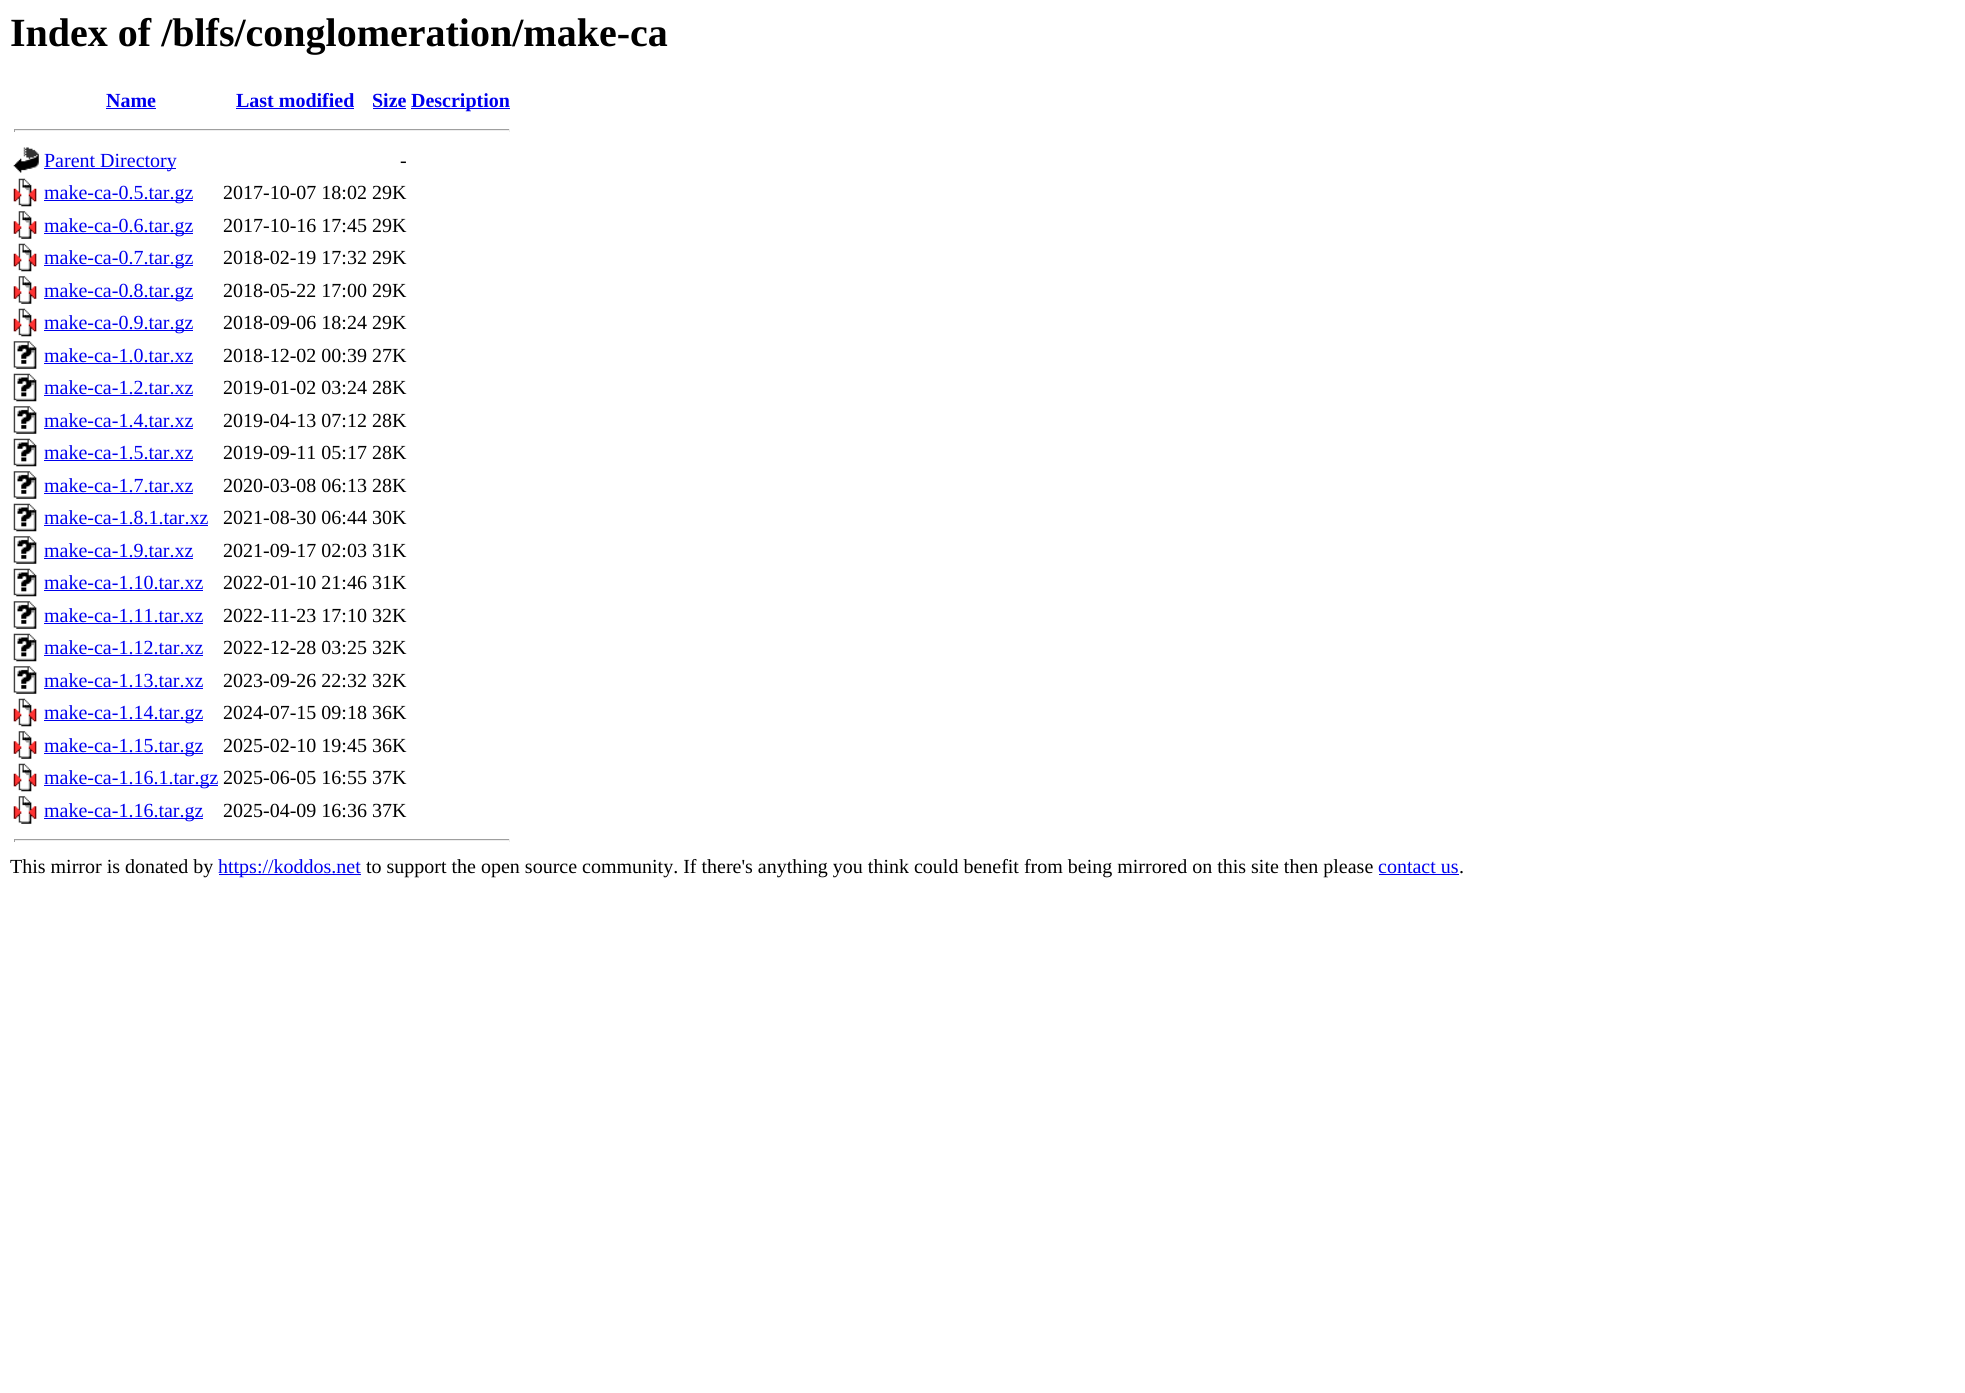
#include <cairo.h>
#include <math.h>
#include <stddef.h>


static void rgb(cairo_t *cr, int r, int g, int b)
{
	cairo_set_source_rgb(cr, r / 255.0, g / 255.0, b / 255.0);
}

static void face(cairo_t *cr, const char *family, double size, int italic, int bold)
{
	cairo_select_font_face(cr, family, italic ? CAIRO_FONT_SLANT_ITALIC : CAIRO_FONT_SLANT_NORMAL,
		bold ? CAIRO_FONT_WEIGHT_BOLD : CAIRO_FONT_WEIGHT_NORMAL);
	cairo_set_font_size(cr, size);
}

static void label(cairo_t *cr, double x, double y, const char *s)
{
	cairo_move_to(cr, x, y);
	cairo_show_text(cr, s);
}

static void rect(cairo_t *cr, double x, double y, double w, double h)
{
	cairo_rectangle(cr, x, y, w, h);
	cairo_fill(cr);
}

static void image(cairo_t *cr, const char *path, double x, double y, double w, double h)
{
	cairo_surface_t *image = cairo_image_surface_create_from_png(path);
	cairo_save(cr);
	cairo_set_source_surface(cr, image, x, y);
	cairo_rectangle(cr, x, y, w, h);
	cairo_fill(cr);
	cairo_restore(cr);
	cairo_surface_destroy(image);
}

static void draw(cairo_t *cr) {
	rgb(cr, 255, 255, 255);
	cairo_paint(cr);
	face(cr, "Liberation Serif", 40, 0, 1);
	rgb(cr, 0, 0, 0);
	label(cr, 10, 46, "Index of /blfs/conglomeration/make-ca");
	face(cr, "Liberation Serif", 20, 0, 1);
	rgb(cr, 0, 0, 238);
	label(cr, 106, 107, "Name");
	rect(cr, 106, 108, 50, 1);
	label(cr, 236, 107, "Last modified");
	rect(cr, 236, 108, 118, 1);
	label(cr, 372, 107, "Size");
	rect(cr, 373, 108, 33, 1);
	rect(cr, 411, 108, 99, 1);
	label(cr, 411, 107, "Description");
	rgb(cr, 159, 159, 159);
	rect(cr, 14, 129, 496, 1);
	rgb(cr, 238, 238, 238);
	rect(cr, 509, 129, 1, 3);
	rect(cr, 14, 130, 496, 1);
	rgb(cr, 159, 159, 159);
	rect(cr, 14, 129, 1, 3);
	image(cr, "image0.png", 13, 147, 26, 26);
	rgb(cr, 0, 0, 238);
	rect(cr, 44, 168, 132, 1);
	face(cr, "Liberation Serif", 20, 0, 0);
	label(cr, 44, 167, "Parent Directory");
	rgb(cr, 0, 0, 0);
	label(cr, 400, 167, "-");
	image(cr, "image1.png", 13, 178, 24, 29);
	rgb(cr, 0, 0, 238);
	rect(cr, 44, 200, 149, 1);
	label(cr, 44, 199, "make-ca-0.5.tar.gz");
	rgb(cr, 0, 0, 0);
	label(cr, 223, 199, "2017-10-07 18:02 29K");
	image(cr, "image2.png", 13, 211, 24, 28);
	rgb(cr, 0, 0, 238);
	rect(cr, 44, 233, 149, 1);
	label(cr, 44, 232, "make-ca-0.6.tar.gz");
	rgb(cr, 0, 0, 0);
	label(cr, 223, 232, "2017-10-16 17:45 29K");
	image(cr, "image1.png", 13, 243, 24, 29);
	rgb(cr, 0, 0, 238);
	rect(cr, 44, 265, 149, 1);
	label(cr, 44, 264, "make-ca-0.7.tar.gz");
	rgb(cr, 0, 0, 0);
	label(cr, 223, 264, "2018-02-19 17:32 29K");
	image(cr, "image3.png", 13, 276, 24, 28);
	rgb(cr, 0, 0, 238);
	rect(cr, 44, 298, 149, 1);
	label(cr, 44, 297, "make-ca-0.8.tar.gz");
	rgb(cr, 0, 0, 0);
	label(cr, 223, 297, "2018-05-22 17:00 29K");
	image(cr, "image1.png", 13, 308, 24, 29);
	rgb(cr, 0, 0, 238);
	rect(cr, 44, 330, 149, 1);
	label(cr, 44, 329, "make-ca-0.9.tar.gz");
	rgb(cr, 0, 0, 0);
	label(cr, 223, 329, "2018-09-06 18:24 29K");
	image(cr, "image4.png", 13, 341, 24, 28);
	rgb(cr, 0, 0, 238);
	label(cr, 44, 362, "make-ca-1.0.tar.xz");
	rect(cr, 44, 363, 149, 1);
	rgb(cr, 0, 0, 0);
	label(cr, 223, 362, "2018-12-02 00:39 27K");
	image(cr, "image5.png", 13, 373, 24, 29);
	rgb(cr, 0, 0, 238);
	label(cr, 44, 394, "make-ca-1.2.tar.xz");
	rect(cr, 44, 395, 149, 1);
	rgb(cr, 0, 0, 0);
	label(cr, 223, 394, "2019-01-02 03:24 28K");
	image(cr, "image4.png", 13, 406, 24, 28);
	rgb(cr, 0, 0, 238);
	label(cr, 44, 427, "make-ca-1.4.tar.xz");
	rect(cr, 44, 428, 149, 1);
	rgb(cr, 0, 0, 0);
	label(cr, 223, 427, "2019-04-13 07:12 28K");
	image(cr, "image5.png", 13, 438, 24, 29);
	rgb(cr, 0, 0, 238);
	label(cr, 44, 459, "make-ca-1.5.tar.xz");
	rect(cr, 44, 460, 149, 1);
	rgb(cr, 0, 0, 0);
	label(cr, 223, 459, "2019-09-11 05:17 28K");
	image(cr, "image4.png", 13, 471, 24, 28);
	rgb(cr, 0, 0, 238);
	label(cr, 44, 492, "make-ca-1.7.tar.xz");
	rect(cr, 44, 493, 149, 1);
	rgb(cr, 0, 0, 0);
	label(cr, 223, 492, "2020-03-08 06:13 28K");
	image(cr, "image5.png", 13, 503, 24, 29);
	rgb(cr, 0, 0, 238);
	label(cr, 44, 524, "make-ca-1.8.1.tar.xz");
	rect(cr, 44, 525, 164, 1);
	rgb(cr, 0, 0, 0);
	label(cr, 223, 524, "2021-08-30 06:44 30K");
	image(cr, "image4.png", 13, 536, 24, 28);
	rgb(cr, 0, 0, 238);
	label(cr, 44, 557, "make-ca-1.9.tar.xz");
	rect(cr, 44, 558, 149, 1);
	rgb(cr, 0, 0, 0);
	label(cr, 223, 557, "2021-09-17 02:03 31K");
	image(cr, "image5.png", 13, 568, 24, 29);
	rgb(cr, 0, 0, 238);
	label(cr, 44, 589, "make-ca-1.10.tar.xz");
	rect(cr, 44, 590, 159, 1);
	rgb(cr, 0, 0, 0);
	label(cr, 223, 589, "2022-01-10 21:46 31K");
	image(cr, "image4.png", 13, 601, 24, 28);
	rgb(cr, 0, 0, 238);
	label(cr, 44, 622, "make-ca-1.11.tar.xz");
	rect(cr, 44, 623, 159, 1);
	rgb(cr, 0, 0, 0);
	label(cr, 223, 622, "2022-11-23 17:10 32K");
	image(cr, "image5.png", 13, 633, 24, 29);
	rgb(cr, 0, 0, 238);
	label(cr, 44, 654, "make-ca-1.12.tar.xz");
	rect(cr, 44, 655, 159, 1);
	rgb(cr, 0, 0, 0);
	label(cr, 223, 654, "2022-12-28 03:25 32K");
	image(cr, "image4.png", 13, 666, 24, 28);
	rgb(cr, 0, 0, 238);
	label(cr, 44, 687, "make-ca-1.13.tar.xz");
	rect(cr, 44, 688, 159, 1);
	rgb(cr, 0, 0, 0);
	label(cr, 223, 687, "2023-09-26 22:32 32K");
	image(cr, "image1.png", 13, 698, 24, 29);
	rgb(cr, 0, 0, 238);
	rect(cr, 44, 720, 159, 1);
	label(cr, 44, 719, "make-ca-1.14.tar.gz");
	rgb(cr, 0, 0, 0);
	label(cr, 223, 719, "2024-07-15 09:18 36K");
	image(cr, "image2.png", 13, 731, 24, 28);
	rgb(cr, 0, 0, 238);
	rect(cr, 44, 753, 159, 1);
	label(cr, 44, 752, "make-ca-1.15.tar.gz");
	rgb(cr, 0, 0, 0);
	label(cr, 223, 752, "2025-02-10 19:45 36K");
	image(cr, "image1.png", 13, 763, 24, 29);
	rgb(cr, 0, 0, 238);
	rect(cr, 44, 785, 174, 1);
	label(cr, 44, 784, "make-ca-1.16.1.tar.gz");
	rgb(cr, 0, 0, 0);
	label(cr, 223, 784, "2025-06-05 16:55 37K");
	image(cr, "image2.png", 13, 796, 24, 28);
	rgb(cr, 0, 0, 238);
	rect(cr, 44, 818, 159, 1);
	label(cr, 44, 817, "make-ca-1.16.tar.gz");
	rgb(cr, 0, 0, 0);
	label(cr, 223, 817, "2025-04-09 16:36 37K");
	rgb(cr, 159, 159, 159);
	rect(cr, 14, 839, 496, 1);
	rgb(cr, 238, 238, 238);
	rect(cr, 509, 839, 1, 3);
	rect(cr, 14, 840, 496, 1);
	rgb(cr, 159, 159, 159);
	rect(cr, 14, 839, 1, 3);
	rgb(cr, 0, 0, 0);
	label(cr, 10, 873, "This mirror is donated by");
	rgb(cr, 0, 0, 238);
	rect(cr, 219, 874, 142, 1);
	label(cr, 218, 873, "https://koddos.net");
	rgb(cr, 0, 0, 0);
	label(cr, 366, 873, "to support the open source community. If there's anything you think could benefit from being mirrored on this site then please");
	rgb(cr, 0, 0, 238);
	label(cr, 1378, 873, "contact us");
	rect(cr, 1379, 874, 80, 1);
	rgb(cr, 0, 0, 0);
	label(cr, 1459, 873, ".");
}

int main(void) {
	cairo_surface_t *surface = cairo_image_surface_create(CAIRO_FORMAT_RGB24, 1965, 1393);
	cairo_t *cr = cairo_create(surface);
	cairo_font_options_t *options = cairo_font_options_create();
	cairo_font_options_set_hint_metrics(options, CAIRO_HINT_METRICS_OFF);
	cairo_font_options_set_hint_style(options, CAIRO_HINT_STYLE_NONE);
	cairo_set_font_options(cr, options);
	cairo_set_miter_limit(cr, 4);
	draw(cr);
	cairo_surface_write_to_png(surface, "render.png");
	cairo_font_options_destroy(options);
	cairo_destroy(cr);
	cairo_surface_destroy(surface);
	return 0;
}
